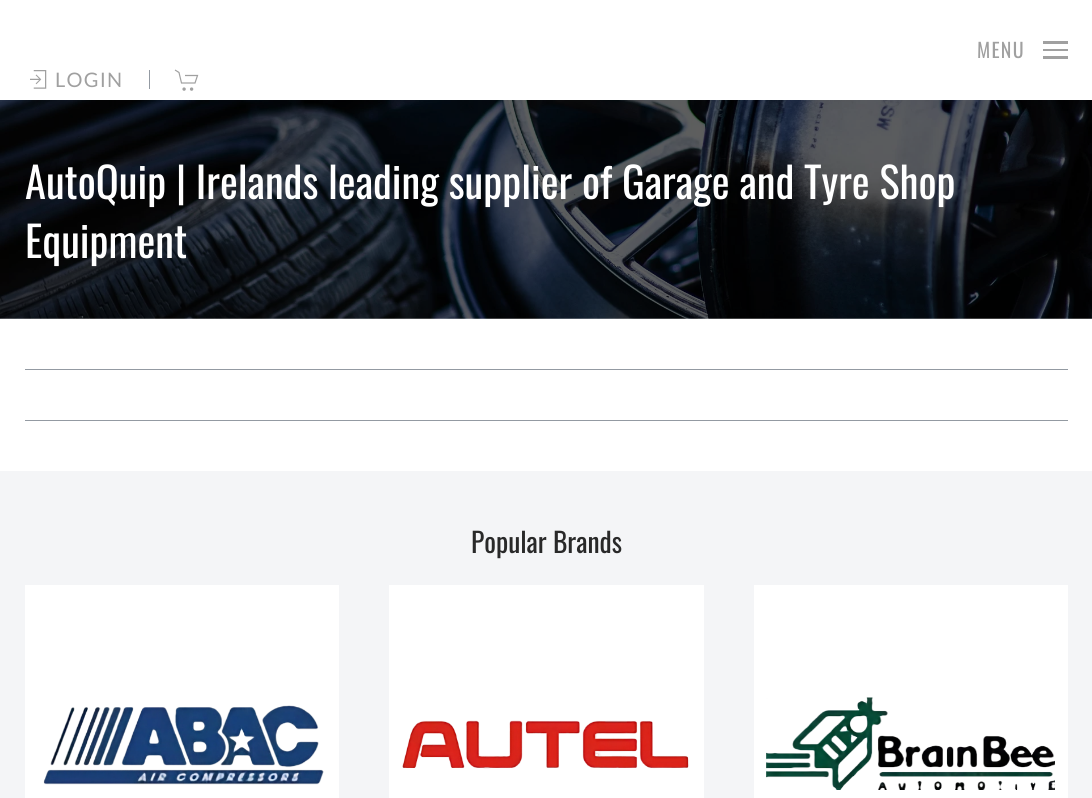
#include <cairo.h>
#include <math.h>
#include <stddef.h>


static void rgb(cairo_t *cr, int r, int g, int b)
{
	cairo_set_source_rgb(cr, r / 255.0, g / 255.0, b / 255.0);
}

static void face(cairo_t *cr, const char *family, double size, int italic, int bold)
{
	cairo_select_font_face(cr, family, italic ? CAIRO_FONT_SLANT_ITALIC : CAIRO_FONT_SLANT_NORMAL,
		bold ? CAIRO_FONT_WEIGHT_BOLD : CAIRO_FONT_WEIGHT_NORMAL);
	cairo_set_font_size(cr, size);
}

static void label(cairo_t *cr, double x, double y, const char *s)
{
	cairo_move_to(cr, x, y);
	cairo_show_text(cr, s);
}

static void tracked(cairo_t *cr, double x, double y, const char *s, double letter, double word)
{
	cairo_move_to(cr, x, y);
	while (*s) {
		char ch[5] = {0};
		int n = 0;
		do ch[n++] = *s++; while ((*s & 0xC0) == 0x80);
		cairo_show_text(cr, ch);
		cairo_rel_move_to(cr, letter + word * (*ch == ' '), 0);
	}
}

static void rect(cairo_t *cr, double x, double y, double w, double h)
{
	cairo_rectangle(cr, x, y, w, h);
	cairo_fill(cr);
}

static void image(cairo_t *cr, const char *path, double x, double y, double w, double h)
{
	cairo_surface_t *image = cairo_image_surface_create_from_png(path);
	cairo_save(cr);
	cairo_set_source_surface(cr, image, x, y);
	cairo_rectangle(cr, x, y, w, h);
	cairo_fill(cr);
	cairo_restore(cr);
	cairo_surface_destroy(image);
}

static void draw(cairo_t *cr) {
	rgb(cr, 255, 255, 255);
	cairo_paint(cr);
	face(cr, "Oswald", 20, 0, 0);
	rgb(cr, 160, 160, 160);
	tracked(cr, 977, 58, "MENU", 1.25, 0);
	rect(cr, 1043, 41, 25, 3);
	rect(cr, 1043, 49, 25, 2);
	rect(cr, 1043, 56, 25, 3);
	image(cr, "image0.png", 30, 70, 17, 19);
	face(cr, "Lato", 20, 0, 0);
	tracked(cr, 55, 87, "LOGIN", 1.25, 0);
	rgb(cr, 147, 154, 162);
	rect(cr, 149, 70, 1, 19);
	cairo_new_path(cr);
	cairo_move_to(cr, 175, 70);
	cairo_line_to(cr, 179, 72.5);
	cairo_line_to(cr, 181.5, 83);
	cairo_line_to(cr, 195, 83);
	cairo_line_to(cr, 197.5, 75.5);
	cairo_line_to(cr, 185, 75.5);
	rgb(cr, 160, 160, 160);
	cairo_set_line_width(cr, 1.2);
	cairo_stroke(cr);
	cairo_arc(cr, 184.1, 89.1, 1.7, 0, 2 * M_PI);
	cairo_fill(cr);
	cairo_arc(cr, 191.6, 89.1, 1.7, 0, 2 * M_PI);
	cairo_fill(cr);
	image(cr, "image1.png", 0, 100, 1092, 219);
	face(cr, "Oswald", 42.5, 0, 0);
	rgb(cr, 255, 255, 255);
	label(cr, 25, 199, "AutoQuip | Irelands leading supplier of Garage and Tyre Shop");
	label(cr, 25, 258, "Equipment");
	rgb(cr, 147, 154, 162);
	rect(cr, 25, 369, 1043, 1);
	rect(cr, 25, 420, 1043, 1);
	rgb(cr, 244, 245, 247);
	rect(cr, 0, 471, 1092, 327);
	face(cr, "Oswald", 27.5, 0, 0);
	rgb(cr, 41, 41, 41);
	label(cr, 471, 553, "Popular Brands");
	rgb(cr, 255, 255, 255);
	rect(cr, 25, 585, 314, 213);
	image(cr, "image2.png", 43, 705, 281, 80);
	rect(cr, 389, 585, 315, 213);
	image(cr, "image3.png", 402, 720, 287, 49);
	rect(cr, 754, 585, 314, 213);
	image(cr, "image4.png", 766, 697, 289, 93);
}

int main(void) {
	cairo_surface_t *surface = cairo_image_surface_create(CAIRO_FORMAT_RGB24, 1092, 798);
	cairo_t *cr = cairo_create(surface);
	cairo_font_options_t *options = cairo_font_options_create();
	cairo_font_options_set_hint_metrics(options, CAIRO_HINT_METRICS_OFF);
	cairo_font_options_set_hint_style(options, CAIRO_HINT_STYLE_NONE);
	cairo_set_font_options(cr, options);
	cairo_set_miter_limit(cr, 4);
	draw(cr);
	cairo_surface_write_to_png(surface, "render.png");
	cairo_font_options_destroy(options);
	cairo_destroy(cr);
	cairo_surface_destroy(surface);
	return 0;
}
